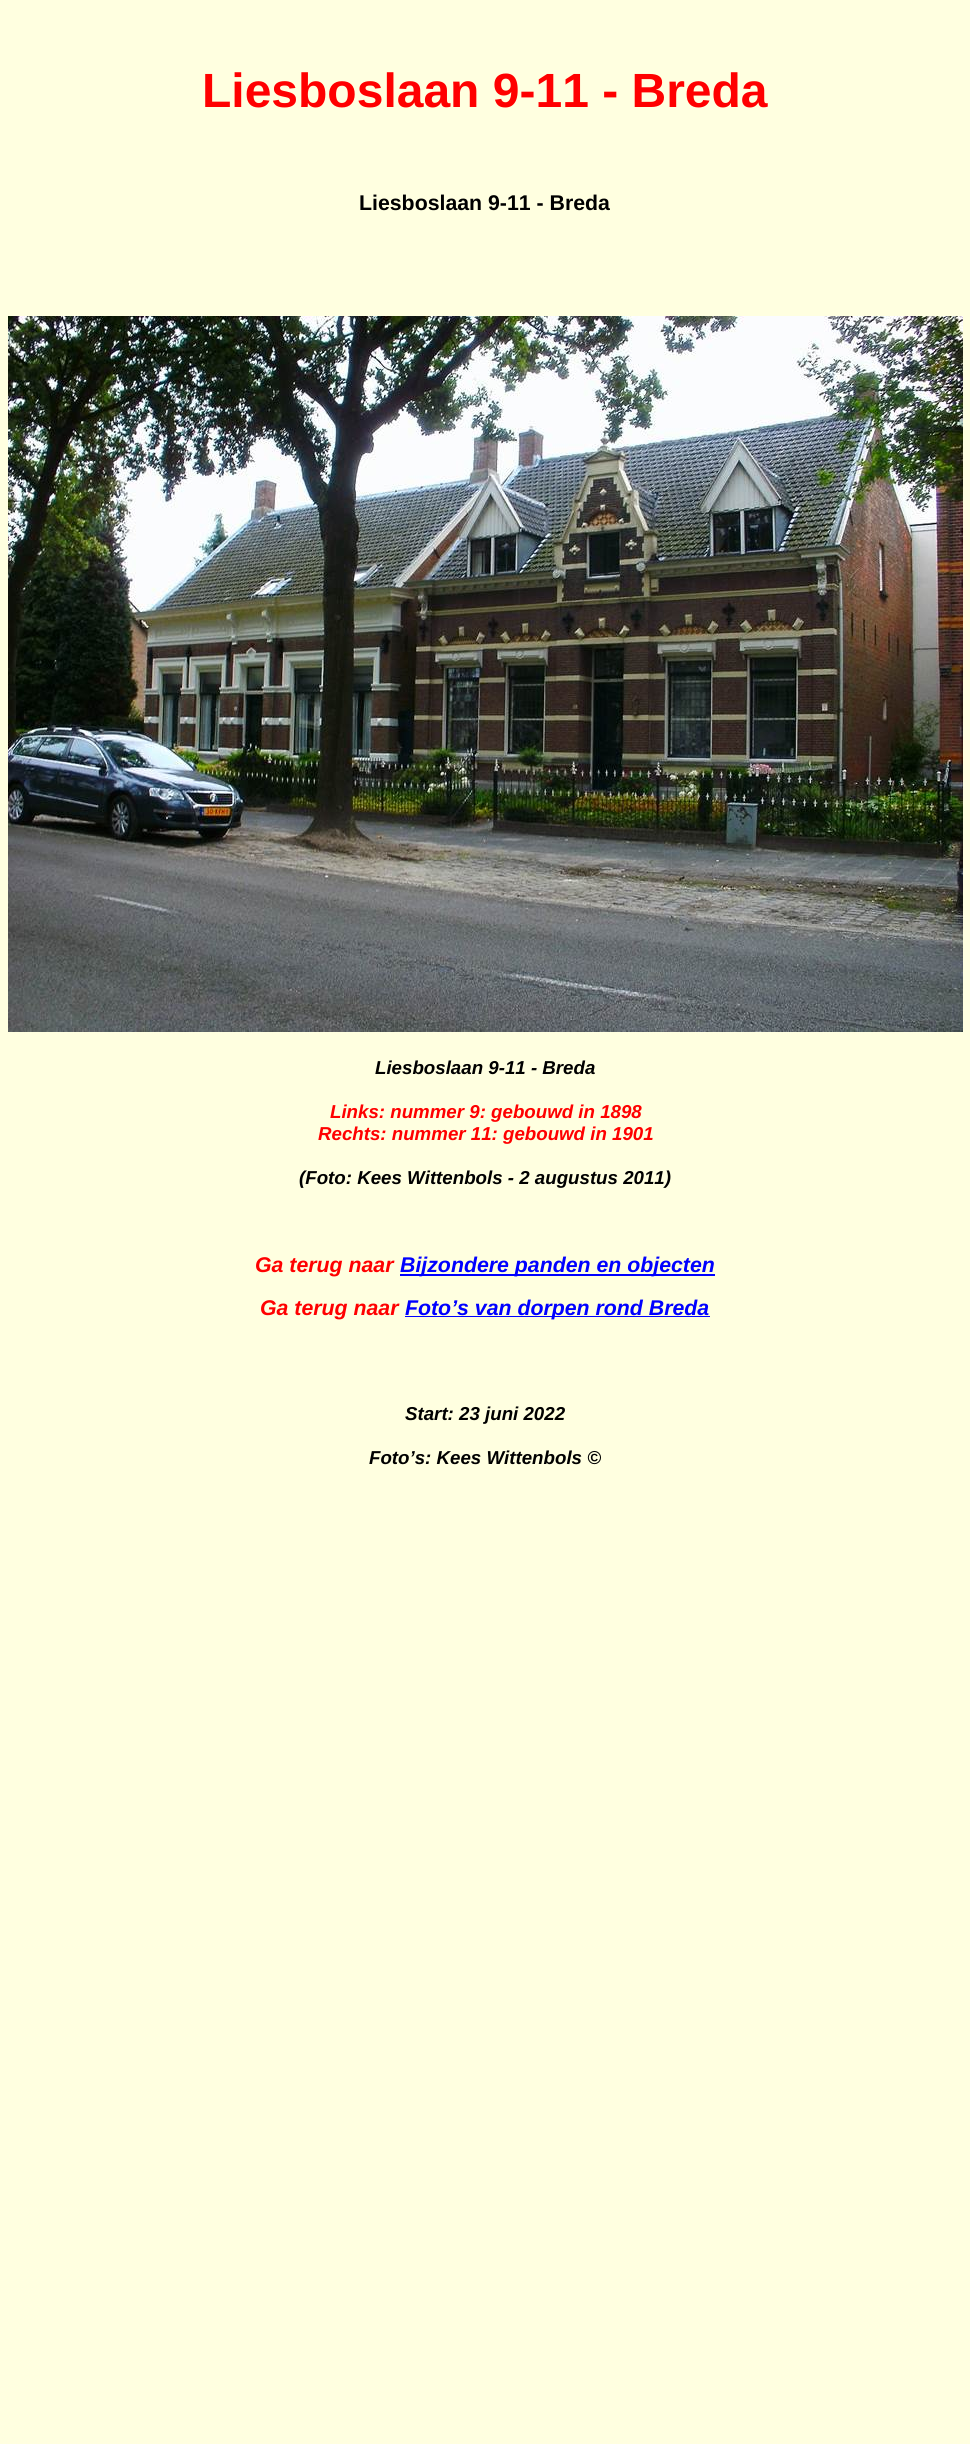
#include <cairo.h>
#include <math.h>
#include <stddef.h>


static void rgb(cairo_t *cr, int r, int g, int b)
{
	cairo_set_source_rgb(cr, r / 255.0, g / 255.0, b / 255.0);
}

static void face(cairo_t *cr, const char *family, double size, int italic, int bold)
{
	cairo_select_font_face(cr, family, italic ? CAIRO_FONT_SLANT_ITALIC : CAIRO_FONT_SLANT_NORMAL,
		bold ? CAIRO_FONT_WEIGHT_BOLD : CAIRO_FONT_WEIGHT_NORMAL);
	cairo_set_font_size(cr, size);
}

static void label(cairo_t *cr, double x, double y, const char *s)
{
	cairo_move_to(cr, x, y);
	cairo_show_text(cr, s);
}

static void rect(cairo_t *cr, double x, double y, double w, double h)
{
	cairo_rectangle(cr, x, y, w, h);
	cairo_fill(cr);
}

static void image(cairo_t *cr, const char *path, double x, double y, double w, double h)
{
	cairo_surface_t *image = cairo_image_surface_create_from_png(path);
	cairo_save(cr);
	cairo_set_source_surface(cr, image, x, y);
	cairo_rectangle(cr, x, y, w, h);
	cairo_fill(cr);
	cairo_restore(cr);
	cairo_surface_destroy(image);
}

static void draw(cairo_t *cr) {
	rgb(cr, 255, 255, 224);
	cairo_paint(cr);
	face(cr, "Liberation Sans", 48, 0, 1);
	rgb(cr, 255, 0, 0);
	label(cr, 202, 107, "Liesboslaan 9-11 - Breda");
	face(cr, "Liberation Sans", 21.3, 0, 1);
	rgb(cr, 0, 0, 0);
	label(cr, 359, 210, "Liesboslaan 9-11 - Breda");
	image(cr, "image0.png", 8, 316, 955, 716);
	face(cr, "Liberation Sans", 18.7, 1, 1);
	label(cr, 375, 1074, "Liesboslaan 9-11 - Breda");
	rgb(cr, 255, 0, 0);
	label(cr, 330, 1118, "Links: nummer 9: gebouwd in 1898");
	label(cr, 318, 1140, "Rechts: nummer 11: gebouwd in 1901");
	rgb(cr, 0, 0, 0);
	label(cr, 299, 1184, "(Foto: Kees Wittenbols - 2 augustus 2011)");
	face(cr, "Liberation Sans", 21.3, 1, 1);
	rgb(cr, 255, 0, 0);
	label(cr, 255, 1272, "Ga terug naar");
	rgb(cr, 0, 0, 255);
	rect(cr, 400, 1274, 315, 2);
	label(cr, 400, 1272, "Bijzondere panden en objecten");
	rgb(cr, 255, 0, 0);
	label(cr, 260, 1315, "Ga terug naar");
	rgb(cr, 0, 0, 255);
	rect(cr, 405, 1316, 305, 1);
	label(cr, 405, 1315, "Foto’s van dorpen rond Breda");
	face(cr, "Liberation Sans", 18.7, 1, 1);
	rgb(cr, 0, 0, 0);
	label(cr, 405, 1420, "Start: 23 juni 2022");
	label(cr, 369, 1464, "Foto’s: Kees Wittenbols ©");
}

int main(void) {
	cairo_surface_t *surface = cairo_image_surface_create(CAIRO_FORMAT_RGB24, 970, 2444);
	cairo_t *cr = cairo_create(surface);
	cairo_font_options_t *options = cairo_font_options_create();
	cairo_font_options_set_hint_metrics(options, CAIRO_HINT_METRICS_OFF);
	cairo_font_options_set_hint_style(options, CAIRO_HINT_STYLE_NONE);
	cairo_set_font_options(cr, options);
	cairo_set_miter_limit(cr, 4);
	draw(cr);
	cairo_surface_write_to_png(surface, "render.png");
	cairo_font_options_destroy(options);
	cairo_destroy(cr);
	cairo_surface_destroy(surface);
	return 0;
}
